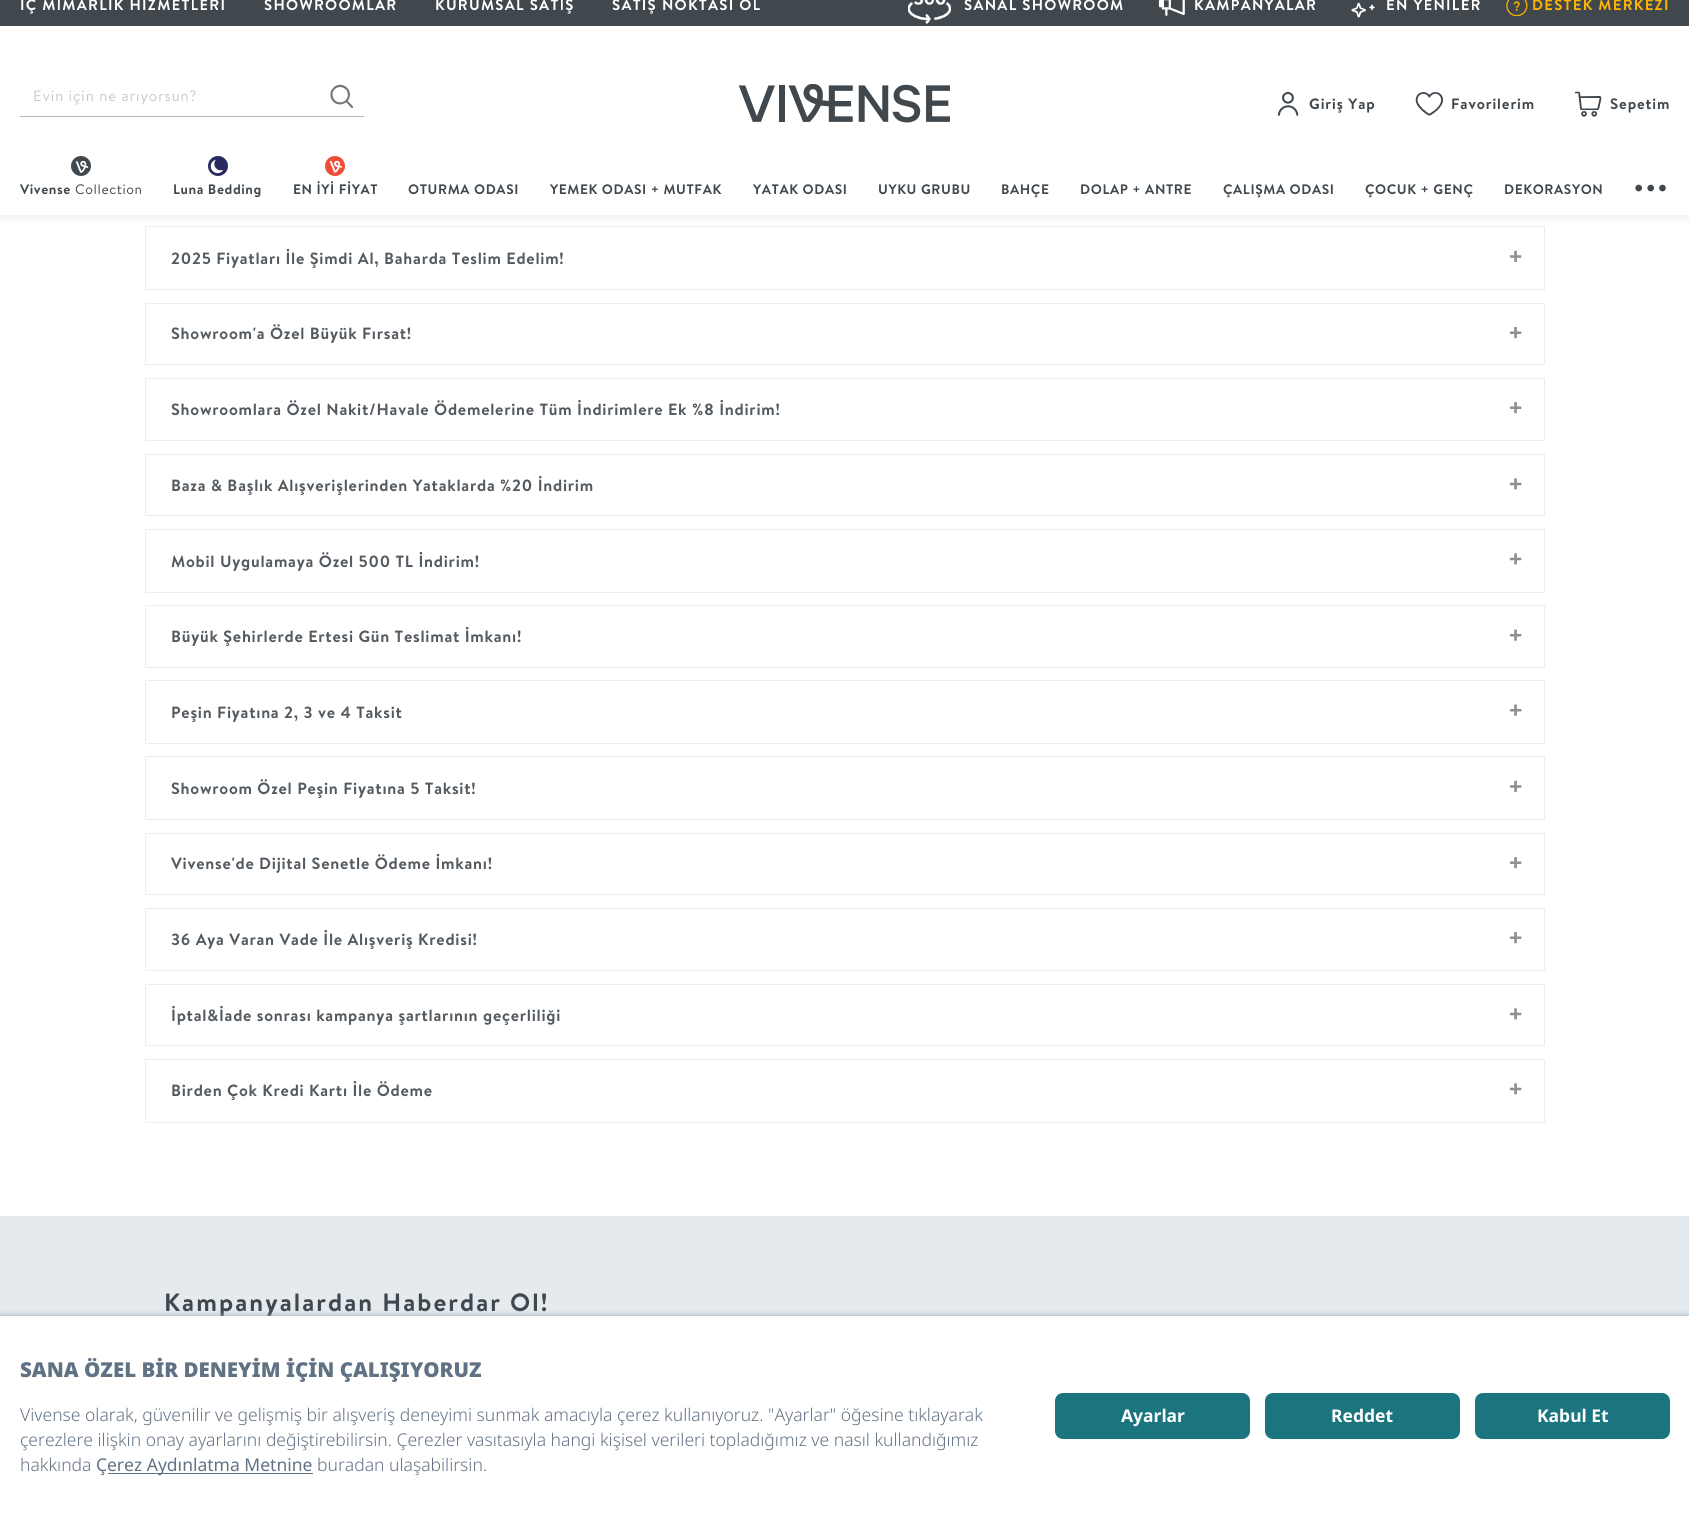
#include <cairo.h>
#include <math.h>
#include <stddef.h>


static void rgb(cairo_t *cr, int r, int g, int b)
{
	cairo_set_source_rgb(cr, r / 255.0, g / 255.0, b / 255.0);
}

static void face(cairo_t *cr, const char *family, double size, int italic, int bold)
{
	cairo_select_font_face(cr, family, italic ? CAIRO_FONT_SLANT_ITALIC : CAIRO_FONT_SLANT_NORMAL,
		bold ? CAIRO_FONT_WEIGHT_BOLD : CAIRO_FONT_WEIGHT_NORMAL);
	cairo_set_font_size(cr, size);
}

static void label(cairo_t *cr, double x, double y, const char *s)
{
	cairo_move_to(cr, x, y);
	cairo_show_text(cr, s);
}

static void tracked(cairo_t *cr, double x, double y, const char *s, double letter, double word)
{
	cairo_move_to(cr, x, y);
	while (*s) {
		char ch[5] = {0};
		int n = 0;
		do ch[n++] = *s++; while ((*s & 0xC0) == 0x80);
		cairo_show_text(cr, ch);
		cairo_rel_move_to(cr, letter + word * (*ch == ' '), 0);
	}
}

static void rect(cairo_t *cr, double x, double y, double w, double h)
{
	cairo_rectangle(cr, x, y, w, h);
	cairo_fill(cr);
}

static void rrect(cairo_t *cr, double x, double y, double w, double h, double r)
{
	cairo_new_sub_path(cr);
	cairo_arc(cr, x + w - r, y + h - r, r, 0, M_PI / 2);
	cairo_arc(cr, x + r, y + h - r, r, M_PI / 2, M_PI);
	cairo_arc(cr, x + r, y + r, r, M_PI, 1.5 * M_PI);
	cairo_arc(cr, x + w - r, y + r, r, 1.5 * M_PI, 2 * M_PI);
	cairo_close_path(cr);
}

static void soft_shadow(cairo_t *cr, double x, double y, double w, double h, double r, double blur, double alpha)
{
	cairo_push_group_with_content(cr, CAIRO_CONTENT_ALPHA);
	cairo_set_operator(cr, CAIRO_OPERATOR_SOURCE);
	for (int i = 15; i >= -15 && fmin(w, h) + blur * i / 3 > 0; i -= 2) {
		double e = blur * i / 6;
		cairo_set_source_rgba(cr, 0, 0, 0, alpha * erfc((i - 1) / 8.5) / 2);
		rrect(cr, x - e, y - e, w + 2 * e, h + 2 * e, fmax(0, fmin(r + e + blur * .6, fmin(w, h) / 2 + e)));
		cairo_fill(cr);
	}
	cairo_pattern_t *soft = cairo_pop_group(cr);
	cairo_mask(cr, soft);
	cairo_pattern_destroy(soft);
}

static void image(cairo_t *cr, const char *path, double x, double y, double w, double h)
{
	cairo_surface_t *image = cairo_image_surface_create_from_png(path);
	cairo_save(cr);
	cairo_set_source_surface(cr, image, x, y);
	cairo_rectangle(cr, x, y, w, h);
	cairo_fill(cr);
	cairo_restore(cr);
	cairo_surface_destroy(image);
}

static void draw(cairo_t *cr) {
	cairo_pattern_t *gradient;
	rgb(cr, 255, 255, 255);
	cairo_paint(cr);
	rgb(cr, 64, 72, 78);
	rect(cr, 0, 0, 1689, 26);
	face(cr, "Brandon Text", 15, 0, 1);
	rgb(cr, 255, 255, 255);
	tracked(cr, 20, 10, "İÇ MİMARLIK HİZMETLERİ", 1.25, 0);
	tracked(cr, 264, 10, "SHOWROOMLAR", 1.25, 0);
	tracked(cr, 435, 10, "KURUMSAL SATIŞ", 1.25, 0);
	tracked(cr, 612, 10, "SATIŞ NOKTASI OL", 1.25, 0);
	image(cr, "image0.png", 908, 0, 43, 24);
	tracked(cr, 964, 10, "SANAL SHOWROOM", 1.25, 0);
	image(cr, "image1.png", 1158, 0, 27, 16);
	tracked(cr, 1194, 10, "KAMPANYALAR", 1.25, 0);
	image(cr, "image2.png", 1351, 2, 24, 16);
	tracked(cr, 1386, 10, "EN YENİLER", 1.25, 0);
	image(cr, "image3.png", 1506, 0, 22, 16);
	rgb(cr, 255, 181, 0);
	tracked(cr, 1532, 10, "DESTEK MERKEZİ", 1.25, 0);
	rgb(cr, 179, 182, 184);
	rect(cr, 20, 116, 344, 1);
	face(cr, "Brandon Text", 15, 0, 0);
	rgb(cr, 200, 200, 200);
	tracked(cr, 33, 101, "Evin için ne arıyorsun?", 0.9, 0);
	image(cr, "image4.png", 330, 84, 24, 24);
	image(cr, "image5.png", 739, 84, 211, 39);
	image(cr, "image6.png", 1277, 92, 22, 24);
	face(cr, "Brandon Text", 15, 0, 1);
	rgb(cr, 64, 72, 78);
	tracked(cr, 1309, 109, "Giriş Yap", 0.9, 0);
	image(cr, "image7.png", 1415, 92, 28, 24);
	tracked(cr, 1451, 109, "Favorilerim", 0.9, 0);
	image(cr, "image8.png", 1574, 91, 28, 26);
	tracked(cr, 1610, 109, "Sepetim", 0.9, 0);
	image(cr, "image9.png", 71, 156, 20, 20);
	face(cr, "Brandon Text", 13.75, 0, 1);
	tracked(cr, 20, 194, "Vivense", 0.6, 0);
	face(cr, "Brandon Text", 13.75, 0, 0);
	tracked(cr, 75, 194, "Collection", 0.6, 0);
	image(cr, "image10.png", 208, 156, 20, 20);
	face(cr, "Brandon Text", 13.75, 0, 1);
	tracked(cr, 173, 194, "Luna Bedding", 0.6, 0);
	image(cr, "image11.png", 325, 156, 20, 20);
	tracked(cr, 293, 194, "EN İYİ FİYAT", 0.6, 0);
	tracked(cr, 408, 194, "OTURMA ODASI", 0.6, 0);
	tracked(cr, 550, 194, "YEMEK ODASI + MUTFAK", 0.6, 0);
	tracked(cr, 753, 194, "YATAK ODASI", 0.6, 0);
	tracked(cr, 878, 194, "UYKU GRUBU", 0.6, 0);
	tracked(cr, 1001, 194, "BAHÇE", 0.6, 0);
	tracked(cr, 1080, 194, "DOLAP + ANTRE", 0.6, 0);
	tracked(cr, 1223, 194, "ÇALIŞMA ODASI", 0.6, 0);
	tracked(cr, 1365, 194, "ÇOCUK + GENÇ", 0.6, 0);
	tracked(cr, 1504, 194, "DEKORASYON", 0.6, 0);
	face(cr, "Brandon Text", 35, 0, 1);
	tracked(cr, 1634, 191, "...", 2.5, 0);
	gradient = cairo_pattern_create_linear(845, 225, 845, 215);
	cairo_pattern_add_color_stop_rgba(gradient, 0, 1, 1, 1, 1);
	cairo_pattern_add_color_stop_rgba(gradient, 1, 0.953, 0.953, 0.949, 1);
	cairo_set_source(cr, gradient);
	cairo_pattern_destroy(gradient);
	rect(cr, 0, 215, 1689, 8);
	image(cr, "image12.png", 1509, 250, 13, 12);
	cairo_rectangle(cr, 145.5, 226.5, 1399, 63);
	rgb(cr, 236, 237, 237);
	cairo_set_line_width(cr, 1);
	cairo_stroke(cr);
	face(cr, "Brandon Text", 16.25, 0, 1);
	rgb(cr, 83, 90, 96);
	tracked(cr, 171, 264, "2025 Fiyatları İle Şimdi Al, Baharda Teslim Edelim!", 0.75, 0);
	image(cr, "image13.png", 1509, 327, 13, 12);
	cairo_rectangle(cr, 145.5, 303.5, 1399, 61);
	rgb(cr, 236, 237, 237);
	cairo_stroke(cr);
	rgb(cr, 83, 90, 96);
	tracked(cr, 171, 339, "Showroom'a Özel Büyük Fırsat!", 0.75, 0);
	image(cr, "image13.png", 1509, 402, 13, 12);
	cairo_rectangle(cr, 145.5, 378.5, 1399, 62);
	rgb(cr, 236, 237, 237);
	cairo_stroke(cr);
	rgb(cr, 83, 90, 96);
	tracked(cr, 171, 415, "Showroomlara Özel Nakit/Havale Ödemelerine Tüm İndirimlere Ek %8 İndirim!", 0.75, 0);
	image(cr, "image14.png", 1509, 478, 13, 12);
	cairo_rectangle(cr, 145.5, 454.5, 1399, 61);
	rgb(cr, 236, 237, 237);
	cairo_stroke(cr);
	rgb(cr, 83, 90, 96);
	tracked(cr, 171, 491, "Baza & Başlık Alışverişlerinden Yataklarda %20 İndirim", 0.75, 0);
	image(cr, "image14.png", 1509, 553, 13, 12);
	cairo_rectangle(cr, 145.5, 529.5, 1399, 63);
	rgb(cr, 236, 237, 237);
	cairo_stroke(cr);
	rgb(cr, 83, 90, 96);
	tracked(cr, 171, 567, "Mobil Uygulamaya Özel 500 TL İndirim!", 0.75, 0);
	image(cr, "image15.png", 1509, 629, 13, 12);
	cairo_rectangle(cr, 145.5, 605.5, 1399, 62);
	rgb(cr, 236, 237, 237);
	cairo_stroke(cr);
	rgb(cr, 83, 90, 96);
	tracked(cr, 171, 642, "Büyük Şehirlerde Ertesi Gün Teslimat İmkanı!", 0.75, 0);
	image(cr, "image15.png", 1509, 704, 13, 12);
	cairo_rectangle(cr, 145.5, 680.5, 1399, 63);
	rgb(cr, 236, 237, 237);
	cairo_stroke(cr);
	rgb(cr, 83, 90, 96);
	tracked(cr, 171, 718, "Peşin Fiyatına 2, 3 ve 4 Taksit", 0.75, 0);
	image(cr, "image12.png", 1509, 780, 13, 12);
	cairo_rectangle(cr, 145.5, 756.5, 1399, 63);
	rgb(cr, 236, 237, 237);
	cairo_stroke(cr);
	rgb(cr, 83, 90, 96);
	tracked(cr, 171, 794, "Showroom Özel Peşin Fiyatına 5 Taksit!", 0.75, 0);
	image(cr, "image13.png", 1509, 857, 13, 12);
	cairo_rectangle(cr, 145.5, 833.5, 1399, 61);
	rgb(cr, 236, 237, 237);
	cairo_stroke(cr);
	rgb(cr, 83, 90, 96);
	tracked(cr, 171, 869, "Vivense'de Dijital Senetle Ödeme İmkanı!", 0.75, 0);
	image(cr, "image13.png", 1509, 932, 13, 12);
	cairo_rectangle(cr, 145.5, 908.5, 1399, 62);
	rgb(cr, 236, 237, 237);
	cairo_stroke(cr);
	rgb(cr, 83, 90, 96);
	tracked(cr, 171, 945, "36 Aya Varan Vade İle Alışveriş Kredisi!", 0.75, 0);
	image(cr, "image14.png", 1509, 1008, 13, 12);
	cairo_rectangle(cr, 145.5, 984.5, 1399, 61);
	rgb(cr, 236, 237, 237);
	cairo_stroke(cr);
	rgb(cr, 83, 90, 96);
	tracked(cr, 171, 1021, "İptal&İade sonrası kampanya şartlarının geçerliliği", 0.75, 0);
	image(cr, "image14.png", 1509, 1083, 13, 12);
	cairo_rectangle(cr, 145.5, 1059.5, 1399, 63);
	rgb(cr, 236, 237, 237);
	cairo_stroke(cr);
	rgb(cr, 83, 90, 96);
	tracked(cr, 171, 1096, "Birden Çok Kredi Kartı İle Ödeme", 0.75, 0);
	rgb(cr, 228, 234, 237);
	rect(cr, 0, 1216, 1689, 100);
	face(cr, "Brandon Text", 25, 0, 1);
	rgb(cr, 64, 72, 78);
	tracked(cr, 164, 1311, "Kampanyalardan Haberdar Ol!", 2.05, 0);
	rgb(cr, 155, 167, 183);
	soft_shadow(cr, 0, 1316, 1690, 199, 0, 3, 1);
	rgb(cr, 255, 255, 255);
	rect(cr, 0, 1316, 1689, 199);
	face(cr, "Noto Sans Black", 20.5, 0, 0);
	rgb(cr, 98, 114, 133);
	label(cr, 20, 1377, "SANA ÖZEL BİR DENEYİM İÇİN ÇALIŞIYORUZ");
	face(cr, "Noto Sans Light", 17.5, 0, 0);
	label(cr, 20, 1421, "Vivense olarak, güvenilir ve gelişmiş bir alışveriş deneyimi sunmak amacıyla çerez kullanıyoruz. \"Ayarlar\" öğesine tıklayarak");
	label(cr, 20, 1446, "çerezlere ilişkin onay ayarlarını değiştirebilirsin. Çerezler vasıtasıyla hangi kişisel verileri topladığımız ve nasıl kullandığımız");
	label(cr, 20, 1471, "hakkında");
	face(cr, "Noto Sans", 17.5, 0, 0);
	label(cr, 96, 1471, "Ç");
	rect(cr, 108, 1473, 205, 1);
	label(cr, 107, 1471, "erez Aydınlatma Metnine");
	face(cr, "Noto Sans Light", 17.5, 0, 0);
	label(cr, 317, 1471, "buradan ulaşabilirsin.");
	rgb(cr, 27, 117, 126);
	rrect(cr, 1055, 1393, 195, 46, 8);
	cairo_fill(cr);
	face(cr, "Noto Sans", 17.5, 0, 1);
	rgb(cr, 255, 255, 255);
	label(cr, 1121, 1422, "Ayarlar");
	rgb(cr, 27, 117, 126);
	rrect(cr, 1265, 1393, 195, 46, 8);
	cairo_fill(cr);
	rgb(cr, 255, 255, 255);
	label(cr, 1331, 1422, "Reddet");
	rgb(cr, 27, 117, 126);
	rrect(cr, 1475, 1393, 195, 46, 8);
	cairo_fill(cr);
	rgb(cr, 255, 255, 255);
	label(cr, 1537, 1422, "Kabul Et");
}

int main(void) {
	cairo_surface_t *surface = cairo_image_surface_create(CAIRO_FORMAT_RGB24, 1689, 1515);
	cairo_t *cr = cairo_create(surface);
	cairo_font_options_t *options = cairo_font_options_create();
	cairo_font_options_set_hint_metrics(options, CAIRO_HINT_METRICS_OFF);
	cairo_font_options_set_hint_style(options, CAIRO_HINT_STYLE_NONE);
	cairo_set_font_options(cr, options);
	cairo_set_miter_limit(cr, 4);
	draw(cr);
	cairo_surface_write_to_png(surface, "render.png");
	cairo_font_options_destroy(options);
	cairo_destroy(cr);
	cairo_surface_destroy(surface);
	return 0;
}
